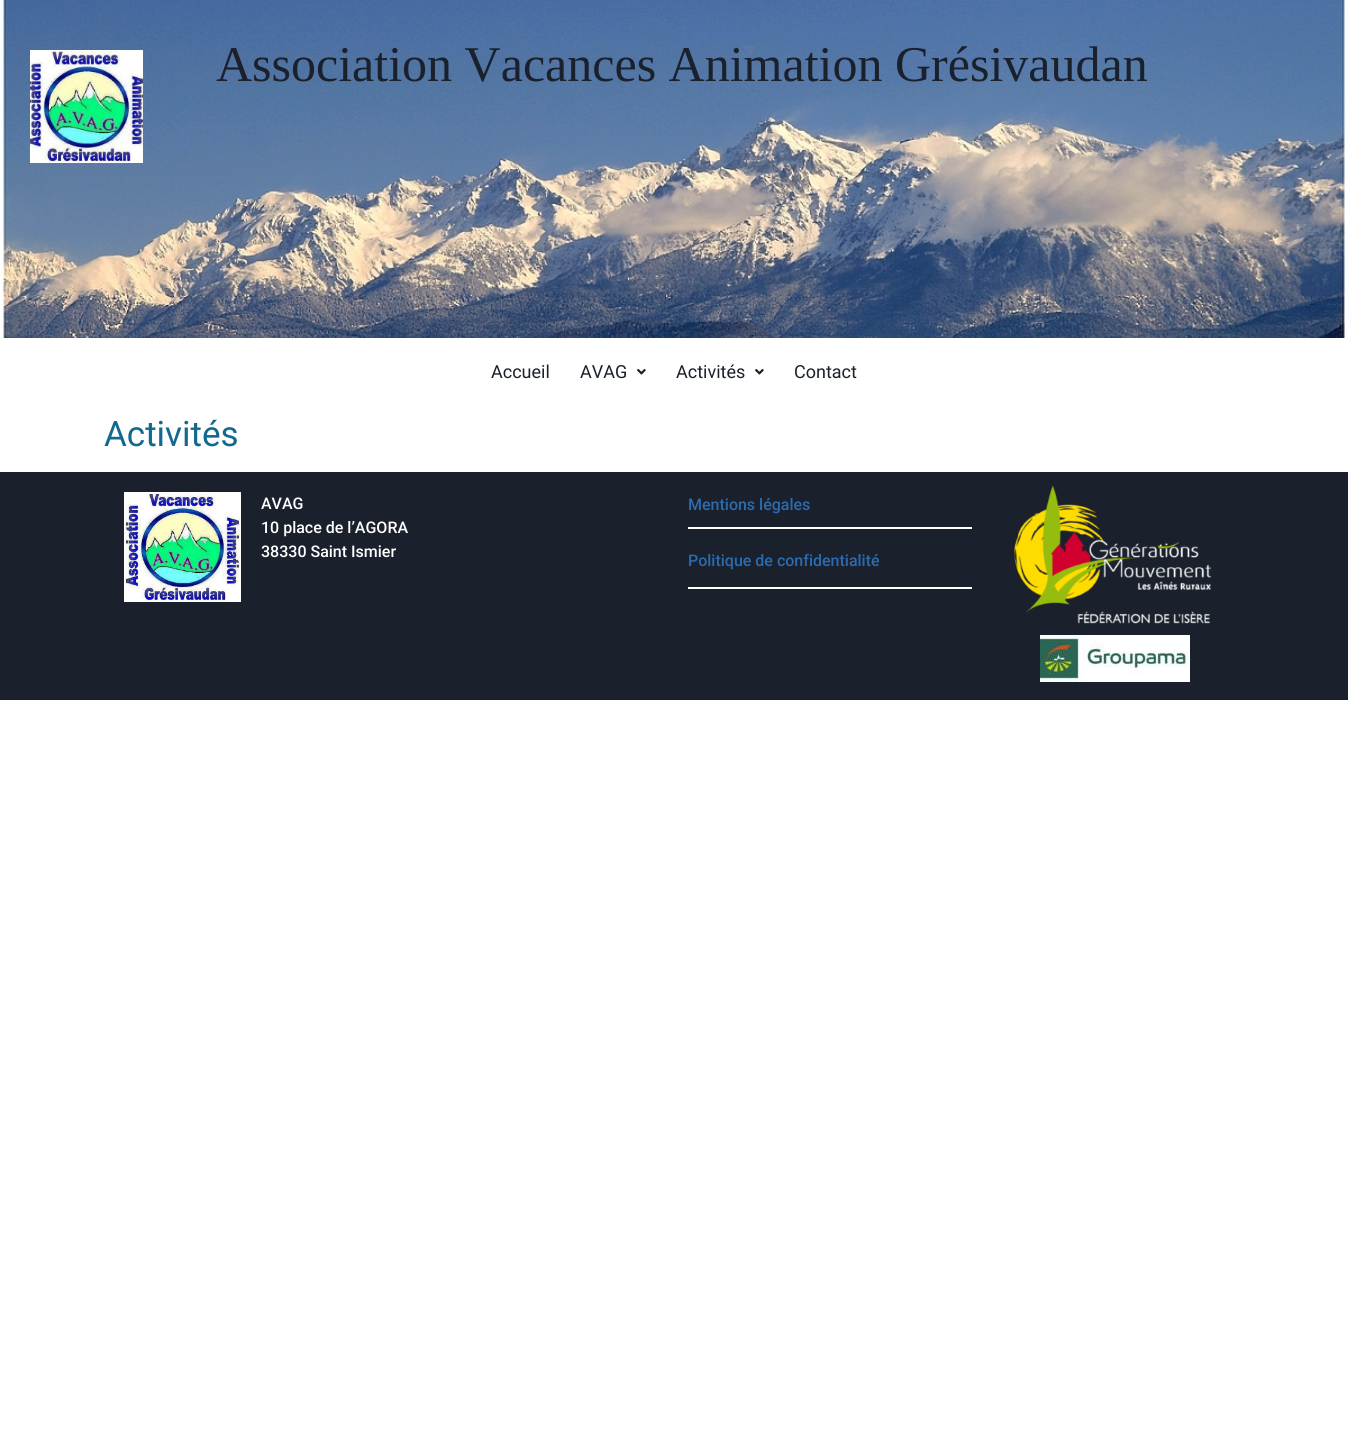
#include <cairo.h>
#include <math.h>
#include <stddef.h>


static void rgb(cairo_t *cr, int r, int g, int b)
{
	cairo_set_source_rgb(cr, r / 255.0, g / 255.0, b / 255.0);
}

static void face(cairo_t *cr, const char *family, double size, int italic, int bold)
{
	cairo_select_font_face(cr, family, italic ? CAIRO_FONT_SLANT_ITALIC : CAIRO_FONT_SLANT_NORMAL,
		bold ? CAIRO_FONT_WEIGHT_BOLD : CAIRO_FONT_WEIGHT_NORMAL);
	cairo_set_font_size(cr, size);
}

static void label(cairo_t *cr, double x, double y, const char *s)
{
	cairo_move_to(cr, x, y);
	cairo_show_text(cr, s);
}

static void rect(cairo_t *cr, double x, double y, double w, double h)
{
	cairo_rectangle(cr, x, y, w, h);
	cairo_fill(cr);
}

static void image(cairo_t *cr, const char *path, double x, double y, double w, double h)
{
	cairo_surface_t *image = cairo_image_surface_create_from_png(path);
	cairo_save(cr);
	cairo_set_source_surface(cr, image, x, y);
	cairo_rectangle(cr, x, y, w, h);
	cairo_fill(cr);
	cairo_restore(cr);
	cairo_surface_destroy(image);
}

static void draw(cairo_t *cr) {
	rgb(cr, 255, 255, 255);
	cairo_paint(cr);
	image(cr, "image0.png", 1, 0, 1346, 338);
	image(cr, "image1.png", 30, 50, 113, 113);
	face(cr, "Liberation Serif", 50, 0, 0);
	rgb(cr, 26, 32, 44);
	label(cr, 216, 81, "Association Vacances Animation Grésivaudan");
	face(cr, "Roboto", 18, 0, 0);
	label(cr, 491, 378, "Accueil");
	label(cr, 580, 378, "AVAG");
	image(cr, "image2.png", 637, 369, 9, 6);
	label(cr, 676, 378, "Activités");
	image(cr, "image2.png", 755, 369, 9, 6);
	label(cr, 794, 378, "Contact");
	face(cr, "Roboto", 35, 0, 0);
	rgb(cr, 17, 105, 142);
	label(cr, 104, 446, "Activités");
	rgb(cr, 26, 32, 44);
	rect(cr, 0, 472, 1348, 228);
	image(cr, "image3.png", 124, 492, 117, 110);
	face(cr, "Roboto Medium", 16, 0, 0);
	rgb(cr, 255, 255, 255);
	label(cr, 261, 509, "AVAG");
	label(cr, 261, 533, "10 place de l’AGORA");
	label(cr, 261, 557, "38330 Saint Ismier");
	rect(cr, 688, 527, 284, 2);
	rgb(cr, 43, 108, 176);
	label(cr, 688, 510, "Mentions légales");
	rgb(cr, 255, 255, 255);
	rect(cr, 688, 587, 284, 2);
	rgb(cr, 43, 108, 176);
	label(cr, 688, 566, "Politique de confidentialité");
	image(cr, "image4.png", 1014, 485, 198, 139);
	image(cr, "image5.png", 1040, 635, 150, 47);
}

int main(void) {
	cairo_surface_t *surface = cairo_image_surface_create(CAIRO_FORMAT_RGB24, 1348, 1453);
	cairo_t *cr = cairo_create(surface);
	cairo_font_options_t *options = cairo_font_options_create();
	cairo_font_options_set_hint_metrics(options, CAIRO_HINT_METRICS_OFF);
	cairo_font_options_set_hint_style(options, CAIRO_HINT_STYLE_NONE);
	cairo_set_font_options(cr, options);
	cairo_set_miter_limit(cr, 4);
	draw(cr);
	cairo_surface_write_to_png(surface, "render.png");
	cairo_font_options_destroy(options);
	cairo_destroy(cr);
	cairo_surface_destroy(surface);
	return 0;
}
